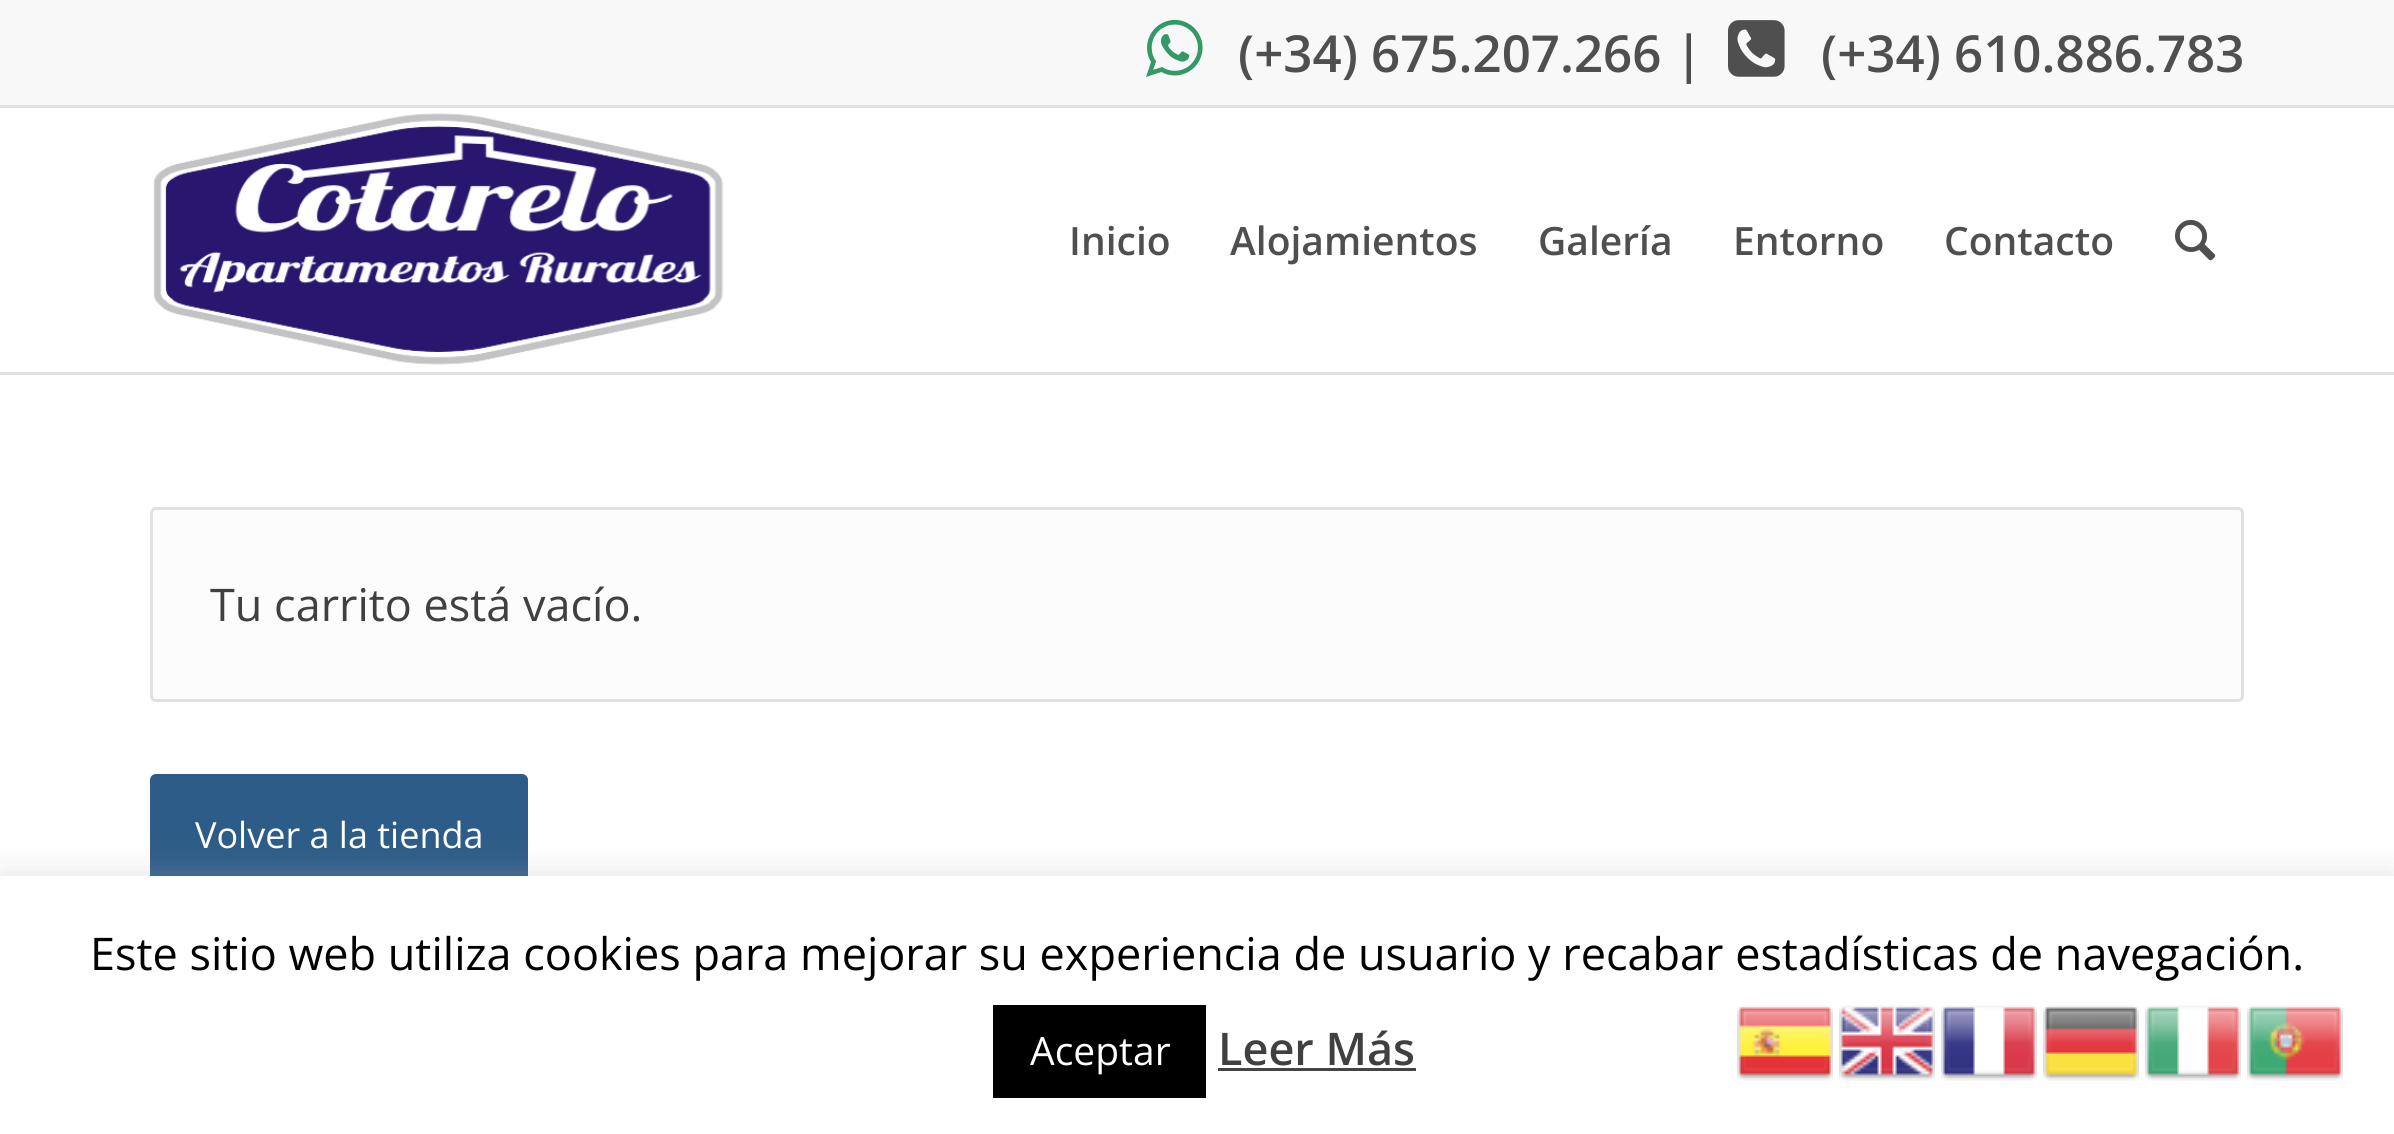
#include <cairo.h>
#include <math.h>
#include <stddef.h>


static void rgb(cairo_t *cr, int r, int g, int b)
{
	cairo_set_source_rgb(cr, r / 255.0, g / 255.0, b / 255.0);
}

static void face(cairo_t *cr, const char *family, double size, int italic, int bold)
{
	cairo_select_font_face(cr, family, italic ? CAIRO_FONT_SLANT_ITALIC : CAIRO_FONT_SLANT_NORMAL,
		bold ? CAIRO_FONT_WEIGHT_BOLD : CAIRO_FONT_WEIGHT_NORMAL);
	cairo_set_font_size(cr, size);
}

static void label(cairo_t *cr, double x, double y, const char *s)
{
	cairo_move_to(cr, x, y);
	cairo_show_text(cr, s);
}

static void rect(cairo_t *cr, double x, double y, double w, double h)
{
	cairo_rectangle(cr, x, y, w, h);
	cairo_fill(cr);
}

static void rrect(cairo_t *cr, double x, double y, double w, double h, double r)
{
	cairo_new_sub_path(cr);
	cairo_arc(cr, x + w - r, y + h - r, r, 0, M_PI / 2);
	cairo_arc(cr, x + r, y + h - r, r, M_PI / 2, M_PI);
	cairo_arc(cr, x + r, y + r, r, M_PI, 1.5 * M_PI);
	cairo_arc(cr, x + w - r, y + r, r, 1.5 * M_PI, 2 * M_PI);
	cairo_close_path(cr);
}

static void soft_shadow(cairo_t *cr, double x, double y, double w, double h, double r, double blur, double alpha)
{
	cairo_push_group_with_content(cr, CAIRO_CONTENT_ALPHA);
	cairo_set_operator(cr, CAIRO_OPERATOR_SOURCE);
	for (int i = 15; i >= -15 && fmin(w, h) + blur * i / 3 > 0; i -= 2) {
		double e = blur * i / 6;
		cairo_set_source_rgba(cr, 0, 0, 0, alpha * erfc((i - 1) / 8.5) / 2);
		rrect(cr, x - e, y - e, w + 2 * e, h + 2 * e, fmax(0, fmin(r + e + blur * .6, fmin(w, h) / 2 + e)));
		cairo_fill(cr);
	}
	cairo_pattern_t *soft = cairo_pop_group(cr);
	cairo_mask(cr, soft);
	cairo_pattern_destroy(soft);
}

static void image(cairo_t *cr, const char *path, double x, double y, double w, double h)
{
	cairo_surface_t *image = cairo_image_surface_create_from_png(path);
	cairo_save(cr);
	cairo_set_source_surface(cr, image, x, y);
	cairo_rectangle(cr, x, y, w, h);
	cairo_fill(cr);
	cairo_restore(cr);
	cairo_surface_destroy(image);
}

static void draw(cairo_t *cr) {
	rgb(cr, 255, 255, 255);
	cairo_paint(cr);
	rgb(cr, 248, 248, 248);
	rect(cr, 0, 0, 2394, 105);
	rgb(cr, 225, 225, 225);
	rect(cr, 0, 105, 2394, 3);
	image(cr, "image0.png", 1146, 19, 57, 58);
	face(cr, "Open Sans SemiBold", 51, 0, 0);
	rgb(cr, 79, 79, 79);
	label(cr, 1238, 72, "(+34) 675.207.266 |");
	image(cr, "image1.png", 1728, 20, 57, 57);
	label(cr, 1821, 72, "(+34) 610.886.783");
	rgb(cr, 225, 225, 225);
	rect(cr, 0, 372, 2394, 3);
	image(cr, "image2.png", 153, 113, 571, 252);
	face(cr, "Open Sans SemiBold", 39, 0, 0);
	rgb(cr, 79, 79, 79);
	label(cr, 1069, 255, "Inicio");
	label(cr, 1230, 255, "Alojamientos");
	label(cr, 1538, 255, "Galería");
	label(cr, 1733, 255, "Entorno");
	label(cr, 1944, 255, "Contacto");
	image(cr, "image3.png", 2175, 219, 41, 42);
	rgb(cr, 252, 252, 252);
	rrect(cr, 151.5, 508.5, 2091, 192, 4.5);
	cairo_fill_preserve(cr);
	rgb(cr, 225, 225, 225);
	cairo_set_line_width(cr, 3);
	cairo_stroke(cr);
	face(cr, "Open Sans", 45, 0, 0);
	rgb(cr, 64, 64, 64);
	label(cr, 210, 621, "Tu carrito está vacío.");
	rgb(cr, 45, 92, 136);
	rrect(cr, 150, 774, 378, 126, 6);
	cairo_fill(cr);
	face(cr, "Open Sans", 36, 0, 0);
	rgb(cr, 255, 255, 255);
	label(cr, 195, 848, "Volver a la tienda");
	rgb(cr, 172, 171, 171);
	soft_shadow(cr, 0, 873, 2394, 258, 0, 15, 0.3);
	rgb(cr, 255, 255, 255);
	rect(cr, 0, 876, 2394, 258);
	face(cr, "Open Sans", 45, 0, 0);
	rgb(cr, 0, 0, 0);
	label(cr, 90, 970, "Este sitio web utiliza cookies para mejorar su experiencia de usuario y recabar estadísticas de navegación.");
	rect(cr, 993, 1005, 213, 93);
	face(cr, "Open Sans", 39, 0, 0);
	rgb(cr, 255, 255, 255);
	label(cr, 1030, 1065, "Aceptar");
	face(cr, "Open Sans SemiBold", 45, 0, 0);
	rgb(cr, 64, 64, 64);
	label(cr, 1218, 1065, "Leer Más");
	rgb(cr, 68, 68, 68);
	rect(cr, 1218, 1068, 198, 3);
	image(cr, "image4.png", 1737, 1005, 96, 76);
	image(cr, "image5.png", 1839, 1005, 96, 76);
	image(cr, "image6.png", 1941, 1005, 96, 76);
	image(cr, "image7.png", 2043, 1005, 96, 76);
	image(cr, "image8.png", 2145, 1005, 96, 76);
	image(cr, "image9.png", 2247, 1005, 96, 76);
}

int main(void) {
	cairo_surface_t *surface = cairo_image_surface_create(CAIRO_FORMAT_RGB24, 2394, 1134);
	cairo_t *cr = cairo_create(surface);
	cairo_font_options_t *options = cairo_font_options_create();
	cairo_font_options_set_hint_metrics(options, CAIRO_HINT_METRICS_OFF);
	cairo_font_options_set_hint_style(options, CAIRO_HINT_STYLE_NONE);
	cairo_set_font_options(cr, options);
	cairo_set_miter_limit(cr, 4);
	draw(cr);
	cairo_surface_write_to_png(surface, "render.png");
	cairo_font_options_destroy(options);
	cairo_destroy(cr);
	cairo_surface_destroy(surface);
	return 0;
}
